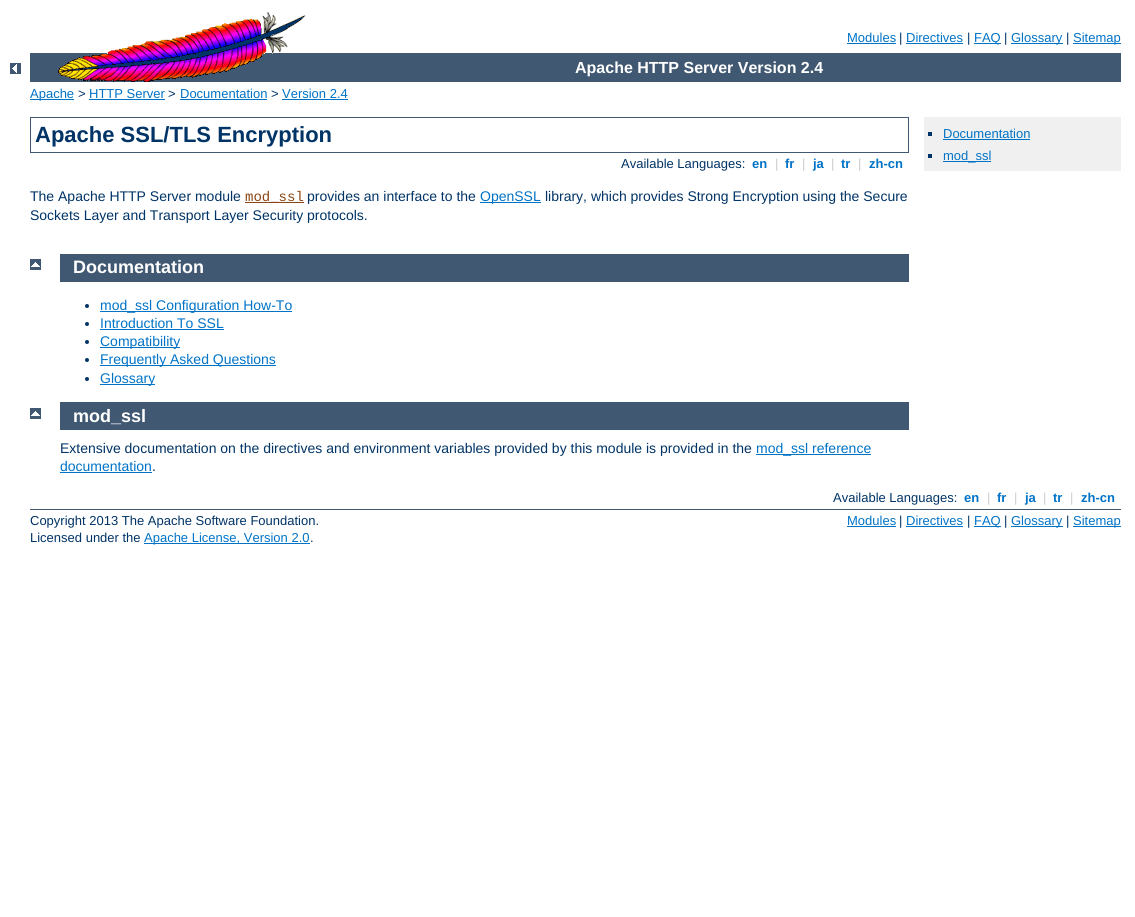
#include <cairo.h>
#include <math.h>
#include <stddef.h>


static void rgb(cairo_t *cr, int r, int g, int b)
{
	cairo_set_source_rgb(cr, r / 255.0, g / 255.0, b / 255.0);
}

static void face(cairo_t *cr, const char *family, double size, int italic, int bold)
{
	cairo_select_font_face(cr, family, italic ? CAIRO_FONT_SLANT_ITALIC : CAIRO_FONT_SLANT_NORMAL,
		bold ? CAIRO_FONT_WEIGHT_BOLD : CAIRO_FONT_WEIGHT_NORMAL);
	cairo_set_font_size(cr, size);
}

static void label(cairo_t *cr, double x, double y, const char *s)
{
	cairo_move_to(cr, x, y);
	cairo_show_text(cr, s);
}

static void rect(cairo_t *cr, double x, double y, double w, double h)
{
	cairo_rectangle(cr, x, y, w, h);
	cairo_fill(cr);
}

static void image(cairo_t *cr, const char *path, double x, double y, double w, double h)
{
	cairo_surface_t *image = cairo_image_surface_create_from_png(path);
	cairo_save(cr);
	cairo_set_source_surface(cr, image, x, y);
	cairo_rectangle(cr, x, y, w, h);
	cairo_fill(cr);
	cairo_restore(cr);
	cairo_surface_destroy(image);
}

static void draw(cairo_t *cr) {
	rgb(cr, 255, 255, 255);
	cairo_paint(cr);
	image(cr, "image0.png", 10, 63, 11, 11);
	rgb(cr, 64, 88, 113);
	rect(cr, 30, 53, 1091, 29);
	image(cr, "image1.png", 58, 12, 248, 70);
	face(cr, "Liberation Sans", 13, 0, 0);
	rgb(cr, 0, 115, 199);
	label(cr, 847, 42, "Modules");
	rect(cr, 847, 43, 49, 1);
	rgb(cr, 0, 51, 102);
	label(cr, 899, 42, "|");
	rgb(cr, 0, 115, 199);
	label(cr, 906, 42, "Directives");
	rect(cr, 906, 43, 57, 1);
	rgb(cr, 0, 51, 102);
	label(cr, 967, 42, "|");
	rgb(cr, 0, 115, 199);
	rect(cr, 974, 43, 27, 1);
	label(cr, 974, 42, "FAQ");
	rgb(cr, 0, 51, 102);
	label(cr, 1004, 42, "|");
	rgb(cr, 0, 115, 199);
	rect(cr, 1011, 43, 52, 1);
	label(cr, 1011, 42, "Glossary");
	rgb(cr, 0, 51, 102);
	label(cr, 1066, 42, "|");
	rgb(cr, 0, 115, 199);
	rect(cr, 1073, 43, 48, 1);
	label(cr, 1073, 42, "Sitemap");
	face(cr, "Liberation Sans", 16, 0, 1);
	rgb(cr, 255, 255, 255);
	label(cr, 575, 73, "Apache HTTP Server Version 2.4");
	rgb(cr, 0, 115, 199);
	rect(cr, 30, 99, 44, 1);
	face(cr, "Liberation Sans", 13, 0, 0);
	label(cr, 30, 98, "Apache");
	rgb(cr, 0, 51, 102);
	label(cr, 78, 98, ">");
	rgb(cr, 0, 115, 199);
	label(cr, 89, 98, "HTTP Server");
	rect(cr, 89, 99, 76, 1);
	rgb(cr, 0, 51, 102);
	label(cr, 168, 98, ">");
	rgb(cr, 0, 115, 199);
	label(cr, 180, 98, "Documentation");
	rect(cr, 180, 99, 87, 1);
	rgb(cr, 0, 51, 102);
	label(cr, 271, 98, ">");
	rgb(cr, 0, 115, 199);
	label(cr, 282, 98, "Version 2.4");
	rect(cr, 282, 99, 66, 1);
	cairo_rectangle(cr, 30.5, 117.5, 878, 35);
	rgb(cr, 64, 88, 113);
	cairo_set_line_width(cr, 1);
	cairo_stroke(cr);
	face(cr, "Liberation Sans", 22, 0, 1);
	rgb(cr, 0, 51, 102);
	label(cr, 35, 142, "Apache SSL/TLS Encryption");
	face(cr, "Liberation Sans", 13, 0, 0);
	label(cr, 621, 168, "Available Languages:");
	face(cr, "Liberation Sans", 13, 0, 1);
	rgb(cr, 0, 115, 199);
	label(cr, 752, 168, "en");
	face(cr, "Liberation Sans", 13, 0, 0);
	rgb(cr, 204, 204, 204);
	label(cr, 775, 168, "|");
	face(cr, "Liberation Sans", 13, 0, 1);
	rgb(cr, 0, 115, 199);
	label(cr, 785, 168, "fr");
	face(cr, "Liberation Sans", 13, 0, 0);
	rgb(cr, 204, 204, 204);
	label(cr, 802, 168, "|");
	face(cr, "Liberation Sans", 13, 0, 1);
	rgb(cr, 0, 115, 199);
	label(cr, 813, 168, "ja");
	face(cr, "Liberation Sans", 13, 0, 0);
	rgb(cr, 204, 204, 204);
	label(cr, 831, 168, "|");
	face(cr, "Liberation Sans", 13, 0, 1);
	rgb(cr, 0, 115, 199);
	label(cr, 841, 168, "tr");
	face(cr, "Liberation Sans", 13, 0, 0);
	rgb(cr, 204, 204, 204);
	label(cr, 858, 168, "|");
	face(cr, "Liberation Sans", 13, 0, 1);
	rgb(cr, 0, 115, 199);
	label(cr, 869, 168, "zh-cn");
	face(cr, "Liberation Sans", 14, 0, 0);
	rgb(cr, 0, 51, 102);
	label(cr, 30, 201, "The Apache HTTP Server module");
	rgb(cr, 139, 69, 19);
	rect(cr, 245, 202, 59, 1);
	face(cr, "Liberation Mono", 14, 0, 0);
	label(cr, 245, 201, "mod_ssl");
	face(cr, "Liberation Sans", 14, 0, 0);
	rgb(cr, 0, 51, 102);
	label(cr, 307, 201, "provides an interface to the");
	rgb(cr, 0, 115, 199);
	rect(cr, 480, 202, 61, 1);
	label(cr, 480, 201, "OpenSSL");
	rgb(cr, 0, 51, 102);
	label(cr, 545, 201, "library, which provides Strong Encryption using the Secure");
	label(cr, 30, 220, "Sockets Layer and Transport Layer Security protocols.");
	rgb(cr, 240, 240, 240);
	rect(cr, 924, 117, 197, 54);
	rgb(cr, 0, 51, 102);
	rect(cr, 928, 132, 4, 4);
	face(cr, "Liberation Sans", 13, 0, 0);
	rgb(cr, 0, 115, 199);
	label(cr, 943, 138, "Documentation");
	rect(cr, 943, 139, 87, 1);
	rgb(cr, 0, 51, 102);
	rect(cr, 928, 154, 4, 4);
	rgb(cr, 0, 115, 199);
	rect(cr, 943, 161, 48, 1);
	label(cr, 943, 160, "mod_ssl");
	image(cr, "image2.png", 30, 259, 11, 11);
	rgb(cr, 64, 88, 113);
	rect(cr, 60, 254, 849, 28);
	face(cr, "Liberation Sans", 18, 0, 1);
	rgb(cr, 255, 255, 255);
	label(cr, 73, 273, "Documentation");
	rgb(cr, 0, 51, 102);
	cairo_new_path(cr);
	cairo_arc(cr, 87, 306, 2, 0, 2 * M_PI);
	cairo_fill(cr);
	rgb(cr, 0, 115, 199);
	rect(cr, 100, 311, 192, 1);
	face(cr, "Liberation Sans", 14, 0, 0);
	label(cr, 100, 310, "mod_ssl Configuration How-To");
	rgb(cr, 0, 51, 102);
	cairo_new_path(cr);
	cairo_arc(cr, 87, 324, 2, 0, 2 * M_PI);
	cairo_fill(cr);
	rgb(cr, 0, 115, 199);
	label(cr, 100, 328, "Introduction To SSL");
	rect(cr, 100, 329, 124, 1);
	rgb(cr, 0, 51, 102);
	cairo_new_path(cr);
	cairo_arc(cr, 87, 342, 2, 0, 2 * M_PI);
	cairo_fill(cr);
	rgb(cr, 0, 115, 199);
	rect(cr, 100, 347, 80, 1);
	label(cr, 100, 346, "Compatibility");
	rgb(cr, 0, 51, 102);
	cairo_new_path(cr);
	cairo_arc(cr, 87, 360, 2, 0, 2 * M_PI);
	cairo_fill(cr);
	rgb(cr, 0, 115, 199);
	rect(cr, 100, 365, 176, 1);
	label(cr, 100, 364, "Frequently Asked Questions");
	rgb(cr, 0, 51, 102);
	cairo_new_path(cr);
	cairo_arc(cr, 87, 379, 2, 0, 2 * M_PI);
	cairo_fill(cr);
	rgb(cr, 0, 115, 199);
	rect(cr, 100, 384, 55, 1);
	label(cr, 100, 383, "Glossary");
	image(cr, "image2.png", 30, 408, 11, 11);
	rgb(cr, 64, 88, 113);
	rect(cr, 60, 402, 849, 28);
	face(cr, "Liberation Sans", 18, 0, 1);
	rgb(cr, 255, 255, 255);
	label(cr, 73, 422, "mod_ssl");
	face(cr, "Liberation Sans", 14, 0, 0);
	rgb(cr, 0, 51, 102);
	label(cr, 60, 453, "Extensive documentation on the directives and environment variables provided by this module is provided in the");
	rgb(cr, 0, 115, 199);
	rect(cr, 756, 454, 115, 1);
	label(cr, 756, 453, "mod_ssl reference");
	label(cr, 60, 471, "documentation");
	rect(cr, 60, 472, 92, 1);
	rgb(cr, 0, 51, 102);
	label(cr, 152, 471, ".");
	face(cr, "Liberation Sans", 13, 0, 0);
	label(cr, 833, 502, "Available Languages:");
	face(cr, "Liberation Sans", 13, 0, 1);
	rgb(cr, 0, 115, 199);
	label(cr, 964, 502, "en");
	face(cr, "Liberation Sans", 13, 0, 0);
	rgb(cr, 204, 204, 204);
	label(cr, 987, 502, "|");
	face(cr, "Liberation Sans", 13, 0, 1);
	rgb(cr, 0, 115, 199);
	label(cr, 997, 502, "fr");
	face(cr, "Liberation Sans", 13, 0, 0);
	rgb(cr, 204, 204, 204);
	label(cr, 1014, 502, "|");
	face(cr, "Liberation Sans", 13, 0, 1);
	rgb(cr, 0, 115, 199);
	label(cr, 1025, 502, "ja");
	face(cr, "Liberation Sans", 13, 0, 0);
	rgb(cr, 204, 204, 204);
	label(cr, 1043, 502, "|");
	face(cr, "Liberation Sans", 13, 0, 1);
	rgb(cr, 0, 115, 199);
	label(cr, 1053, 502, "tr");
	face(cr, "Liberation Sans", 13, 0, 0);
	rgb(cr, 204, 204, 204);
	label(cr, 1070, 502, "|");
	face(cr, "Liberation Sans", 13, 0, 1);
	rgb(cr, 0, 115, 199);
	label(cr, 1081, 502, "zh-cn");
	rgb(cr, 64, 88, 113);
	rect(cr, 30, 509, 1091, 1);
	face(cr, "Liberation Sans", 13, 0, 0);
	rgb(cr, 0, 51, 102);
	label(cr, 30, 525, "Copyright 2013 The Apache Software Foundation.");
	label(cr, 30, 542, "Licensed under the");
	rgb(cr, 0, 115, 199);
	rect(cr, 144, 543, 166, 1);
	label(cr, 144, 542, "Apache License, Version 2.0");
	rgb(cr, 0, 51, 102);
	label(cr, 310, 542, ".");
	rgb(cr, 0, 115, 199);
	label(cr, 847, 525, "Modules");
	rect(cr, 847, 526, 49, 1);
	rgb(cr, 0, 51, 102);
	label(cr, 899, 525, "|");
	rgb(cr, 0, 115, 199);
	label(cr, 906, 525, "Directives");
	rect(cr, 906, 526, 57, 1);
	rgb(cr, 0, 51, 102);
	label(cr, 967, 525, "|");
	rgb(cr, 0, 115, 199);
	rect(cr, 974, 526, 27, 1);
	label(cr, 974, 525, "FAQ");
	rgb(cr, 0, 51, 102);
	label(cr, 1004, 525, "|");
	rgb(cr, 0, 115, 199);
	rect(cr, 1011, 526, 52, 1);
	label(cr, 1011, 525, "Glossary");
	rgb(cr, 0, 51, 102);
	label(cr, 1066, 525, "|");
	rgb(cr, 0, 115, 199);
	rect(cr, 1073, 526, 48, 1);
	label(cr, 1073, 525, "Sitemap");
}

int main(void) {
	cairo_surface_t *surface = cairo_image_surface_create(CAIRO_FORMAT_RGB24, 1135, 917);
	cairo_t *cr = cairo_create(surface);
	cairo_font_options_t *options = cairo_font_options_create();
	cairo_font_options_set_hint_metrics(options, CAIRO_HINT_METRICS_OFF);
	cairo_font_options_set_hint_style(options, CAIRO_HINT_STYLE_NONE);
	cairo_set_font_options(cr, options);
	cairo_set_miter_limit(cr, 4);
	draw(cr);
	cairo_surface_write_to_png(surface, "render.png");
	cairo_font_options_destroy(options);
	cairo_destroy(cr);
	cairo_surface_destroy(surface);
	return 0;
}
